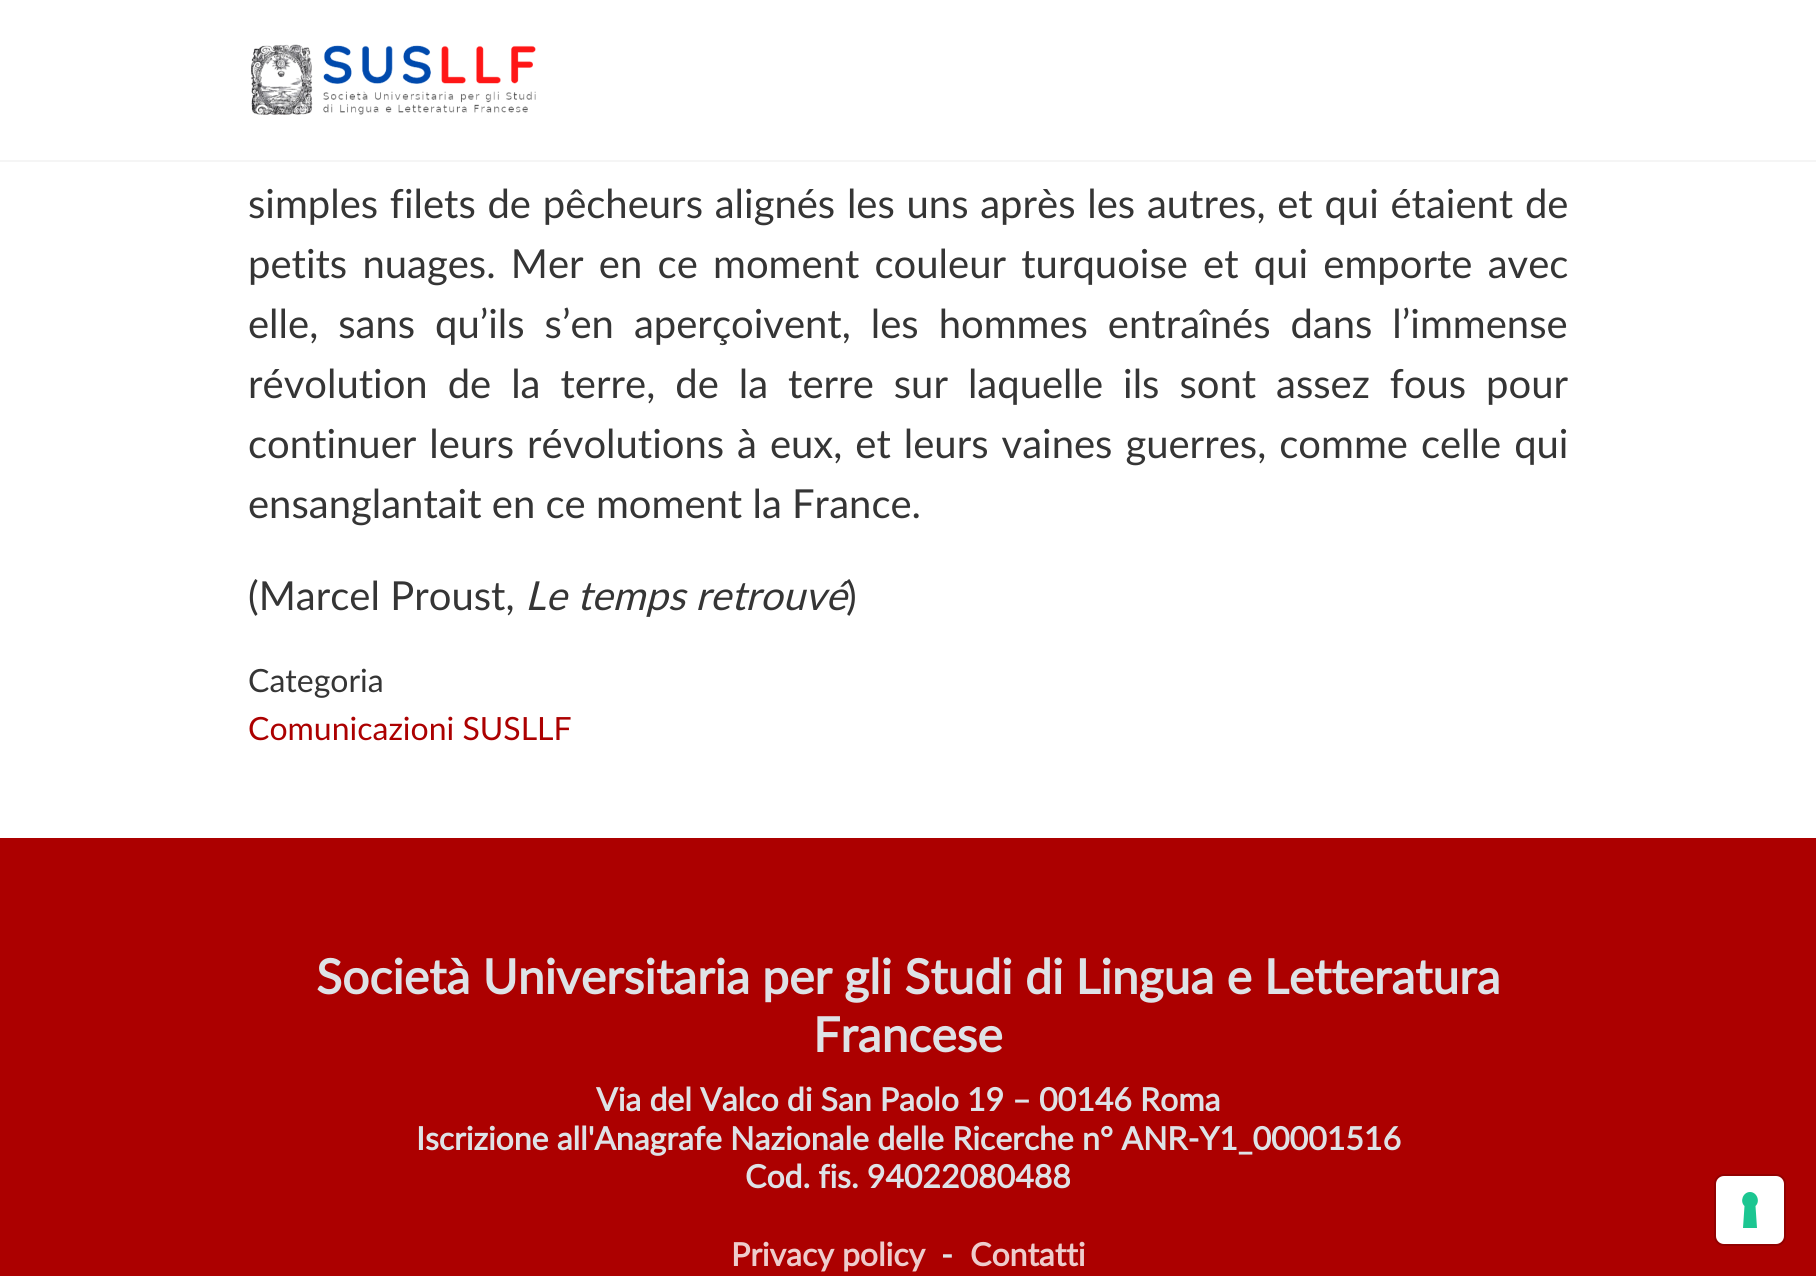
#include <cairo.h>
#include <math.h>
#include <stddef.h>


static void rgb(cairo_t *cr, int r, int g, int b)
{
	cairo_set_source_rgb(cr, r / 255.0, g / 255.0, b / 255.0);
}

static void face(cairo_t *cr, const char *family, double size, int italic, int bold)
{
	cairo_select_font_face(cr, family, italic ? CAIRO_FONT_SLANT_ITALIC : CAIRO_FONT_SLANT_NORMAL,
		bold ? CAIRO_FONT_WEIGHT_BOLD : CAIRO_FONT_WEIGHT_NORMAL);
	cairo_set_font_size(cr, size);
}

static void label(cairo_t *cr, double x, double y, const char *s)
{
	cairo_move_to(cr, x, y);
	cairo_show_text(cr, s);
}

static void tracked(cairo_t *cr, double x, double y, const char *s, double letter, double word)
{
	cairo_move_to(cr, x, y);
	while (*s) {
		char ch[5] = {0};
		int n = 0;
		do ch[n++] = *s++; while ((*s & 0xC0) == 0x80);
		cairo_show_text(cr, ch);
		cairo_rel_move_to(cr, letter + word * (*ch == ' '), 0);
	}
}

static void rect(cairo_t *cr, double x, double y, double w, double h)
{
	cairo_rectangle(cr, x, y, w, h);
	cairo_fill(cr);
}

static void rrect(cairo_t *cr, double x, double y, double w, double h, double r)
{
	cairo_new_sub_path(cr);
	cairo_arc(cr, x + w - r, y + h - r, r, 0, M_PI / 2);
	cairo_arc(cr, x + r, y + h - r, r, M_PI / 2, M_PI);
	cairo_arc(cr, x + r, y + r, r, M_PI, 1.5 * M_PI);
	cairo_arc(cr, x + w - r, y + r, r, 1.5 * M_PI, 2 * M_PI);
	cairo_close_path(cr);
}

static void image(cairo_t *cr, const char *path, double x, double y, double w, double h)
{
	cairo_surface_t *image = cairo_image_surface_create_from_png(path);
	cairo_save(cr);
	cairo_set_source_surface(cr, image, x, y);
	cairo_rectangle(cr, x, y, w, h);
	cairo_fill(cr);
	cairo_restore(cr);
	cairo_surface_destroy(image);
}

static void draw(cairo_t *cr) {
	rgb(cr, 255, 255, 255);
	cairo_paint(cr);
	rgb(cr, 245, 245, 245);
	rect(cr, 0, 160, 1816, 2);
	image(cr, "image0.png", 251, 44, 285, 71);
	face(cr, "Lato", 40, 0, 0);
	rgb(cr, 53, 53, 53);
	tracked(cr, 248, 218, "simples filets de pêcheurs alignés les uns après les autres, et qui étaient de", 0, 1.5);
	tracked(cr, 248, 278, "petits nuages. Mer en ce moment couleur turquoise et qui emporte avec", 0, 5);
	tracked(cr, 248, 338, "elle, sans qu’ils s’en aperçoivent, les hommes entraînés dans l’immense", 0, 9.75);
	tracked(cr, 248, 398, "révolution de la terre, de la terre sur laquelle ils sont assez fous pour", 0, 9.75);
	tracked(cr, 248, 458, "continuer leurs révolutions à eux, et leurs vaines guerres, comme celle qui", 0, 2.75);
	label(cr, 248, 518, "ensanglantait en ce moment la France.");
	label(cr, 248, 610, "(Marcel Proust,");
	face(cr, "Lato", 40, 1, 0);
	label(cr, 525, 610, "Le temps retrouvé");
	face(cr, "Lato", 40, 0, 0);
	label(cr, 846, 610, ")");
	face(cr, "Lato", 32, 0, 0);
	label(cr, 248, 692, "Categoria");
	rgb(cr, 172, 0, 0);
	label(cr, 248, 740, "Comunicazioni SUSLLF");
	rect(cr, 0, 838, 1816, 438);
	face(cr, "Lato", 48, 0, 1);
	rgb(cr, 222, 226, 230);
	label(cr, 316, 994, "Società Universitaria per gli Studi di Lingua e Letteratura");
	label(cr, 813, 1052, "Francese");
	face(cr, "Lato", 32, 0, 1);
	label(cr, 596, 1111, "Via del Valco di San Paolo 19 – 00146 Roma");
	label(cr, 416, 1150, "Iscrizione all'Anagrafe Nazionale delle Ricerche n° ANR-Y1_00001516");
	label(cr, 745, 1188, "Cod. fis. 94022080488");
	rgb(cr, 238, 204, 204);
	label(cr, 731, 1266, "Privacy policy");
	rgb(cr, 222, 226, 230);
	label(cr, 941, 1266, "-");
	rgb(cr, 238, 204, 204);
	label(cr, 970, 1266, "Contatti");
	rrect(cr, 1715, 1175, 70, 70, 9);
	rgb(cr, 146, 0, 0);
	cairo_stroke(cr);
	rgb(cr, 255, 255, 255);
	rrect(cr, 1716, 1176, 68, 68, 8);
	cairo_fill(cr);
	rgb(cr, 28, 198, 145);
	cairo_set_fill_rule(cr, CAIRO_FILL_RULE_EVEN_ODD);
	cairo_new_path(cr);
	cairo_move_to(cr, 1750, 1192);
	cairo_curve_to(cr, 1757, 1192, 1760.5, 1201.5, 1755.5, 1206);
	cairo_line_to(cr, 1757, 1228);
	cairo_line_to(cr, 1743, 1228);
	cairo_line_to(cr, 1744.5, 1206);
	cairo_curve_to(cr, 1739.5, 1201.5, 1743, 1192, 1750, 1192);
	cairo_close_path(cr);
	cairo_fill(cr);
}

int main(void) {
	cairo_surface_t *surface = cairo_image_surface_create(CAIRO_FORMAT_RGB24, 1816, 1276);
	cairo_t *cr = cairo_create(surface);
	cairo_font_options_t *options = cairo_font_options_create();
	cairo_font_options_set_hint_metrics(options, CAIRO_HINT_METRICS_OFF);
	cairo_font_options_set_hint_style(options, CAIRO_HINT_STYLE_NONE);
	cairo_set_font_options(cr, options);
	cairo_set_miter_limit(cr, 4);
	draw(cr);
	cairo_surface_write_to_png(surface, "render.png");
	cairo_font_options_destroy(options);
	cairo_destroy(cr);
	cairo_surface_destroy(surface);
	return 0;
}
